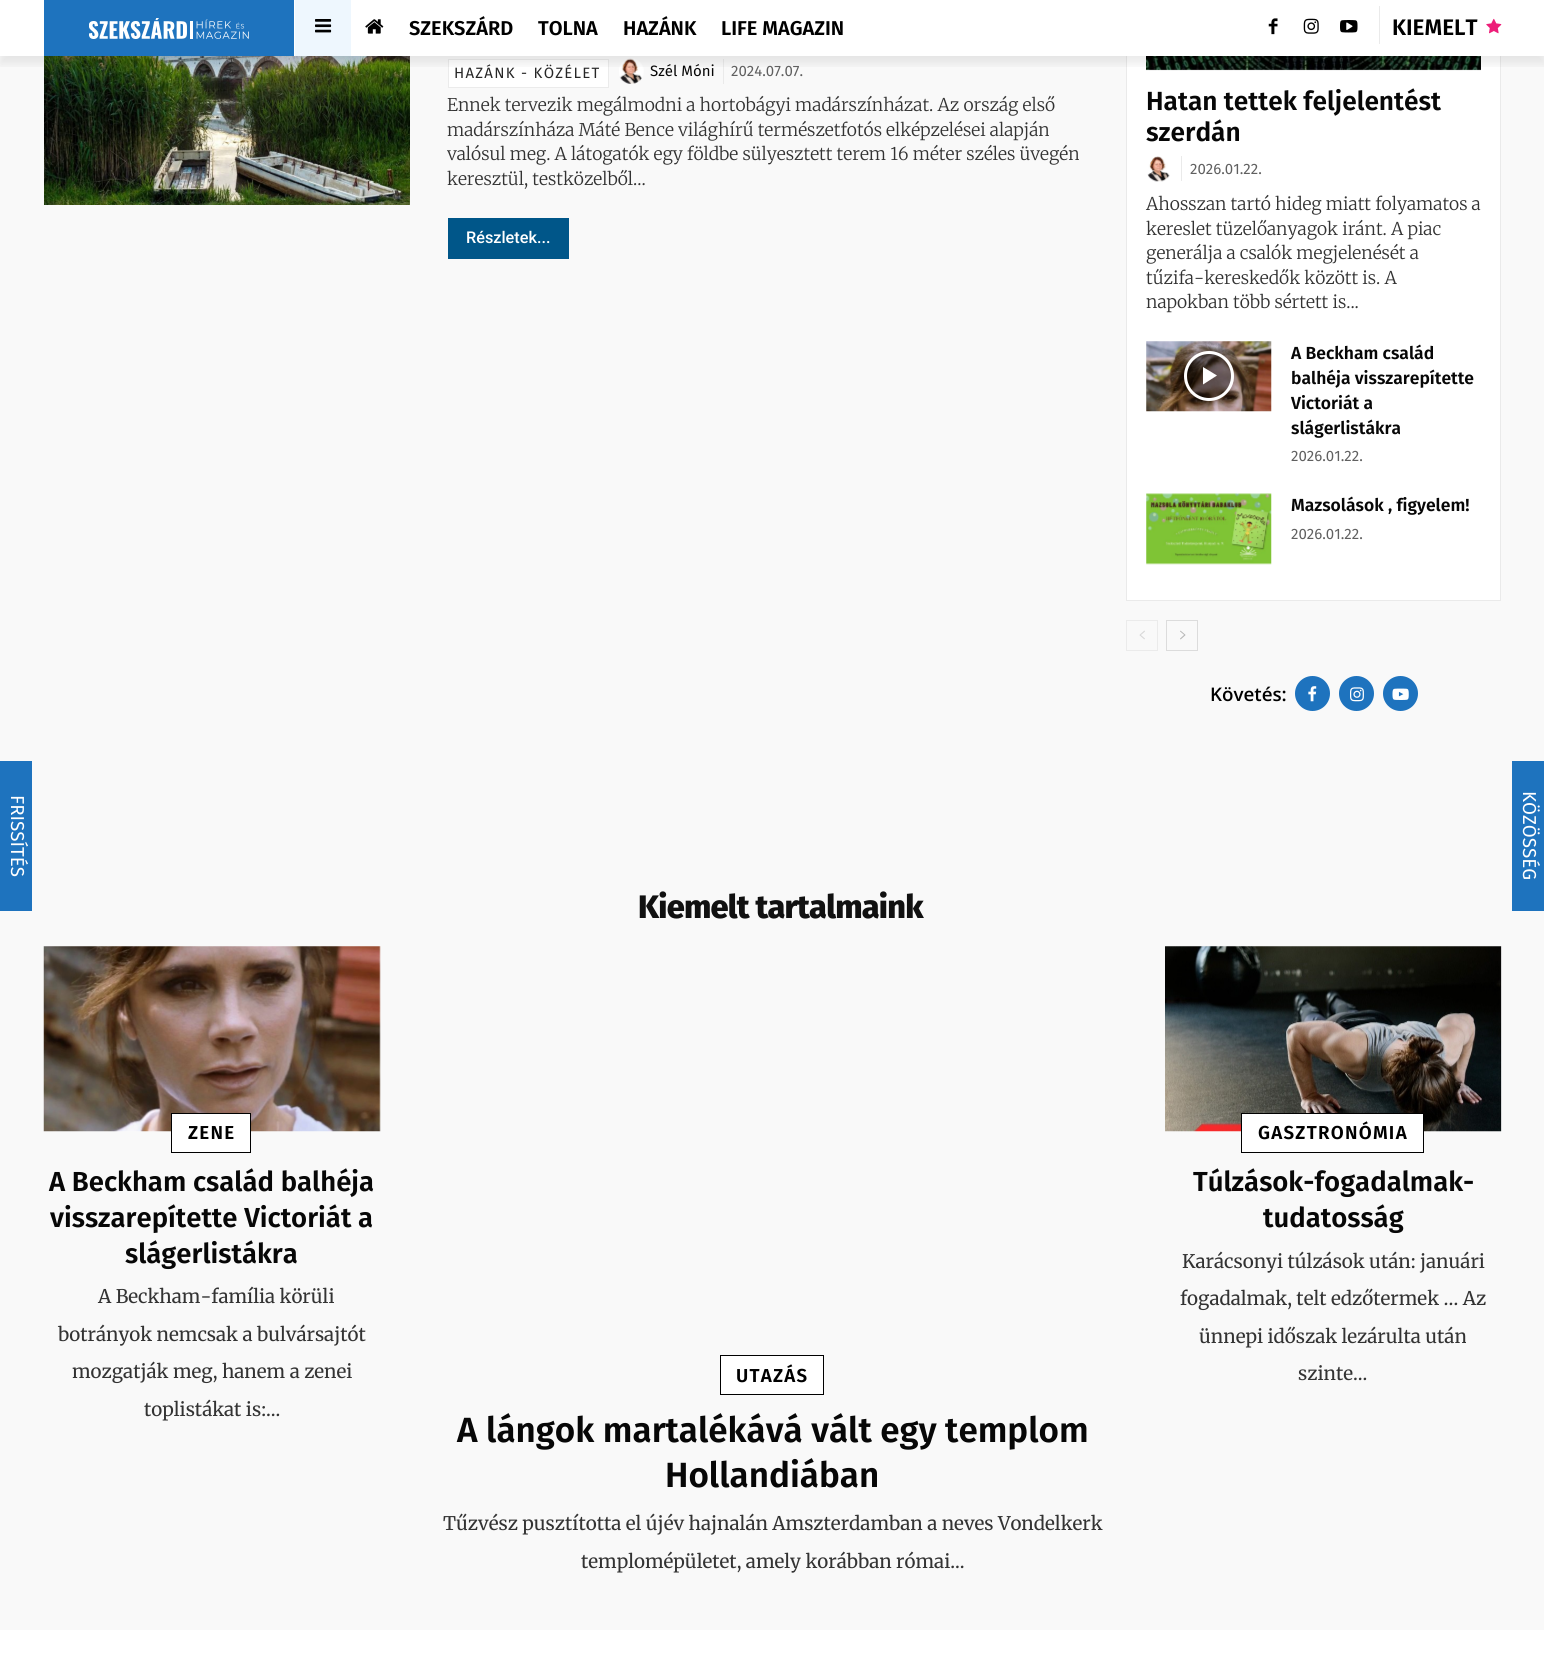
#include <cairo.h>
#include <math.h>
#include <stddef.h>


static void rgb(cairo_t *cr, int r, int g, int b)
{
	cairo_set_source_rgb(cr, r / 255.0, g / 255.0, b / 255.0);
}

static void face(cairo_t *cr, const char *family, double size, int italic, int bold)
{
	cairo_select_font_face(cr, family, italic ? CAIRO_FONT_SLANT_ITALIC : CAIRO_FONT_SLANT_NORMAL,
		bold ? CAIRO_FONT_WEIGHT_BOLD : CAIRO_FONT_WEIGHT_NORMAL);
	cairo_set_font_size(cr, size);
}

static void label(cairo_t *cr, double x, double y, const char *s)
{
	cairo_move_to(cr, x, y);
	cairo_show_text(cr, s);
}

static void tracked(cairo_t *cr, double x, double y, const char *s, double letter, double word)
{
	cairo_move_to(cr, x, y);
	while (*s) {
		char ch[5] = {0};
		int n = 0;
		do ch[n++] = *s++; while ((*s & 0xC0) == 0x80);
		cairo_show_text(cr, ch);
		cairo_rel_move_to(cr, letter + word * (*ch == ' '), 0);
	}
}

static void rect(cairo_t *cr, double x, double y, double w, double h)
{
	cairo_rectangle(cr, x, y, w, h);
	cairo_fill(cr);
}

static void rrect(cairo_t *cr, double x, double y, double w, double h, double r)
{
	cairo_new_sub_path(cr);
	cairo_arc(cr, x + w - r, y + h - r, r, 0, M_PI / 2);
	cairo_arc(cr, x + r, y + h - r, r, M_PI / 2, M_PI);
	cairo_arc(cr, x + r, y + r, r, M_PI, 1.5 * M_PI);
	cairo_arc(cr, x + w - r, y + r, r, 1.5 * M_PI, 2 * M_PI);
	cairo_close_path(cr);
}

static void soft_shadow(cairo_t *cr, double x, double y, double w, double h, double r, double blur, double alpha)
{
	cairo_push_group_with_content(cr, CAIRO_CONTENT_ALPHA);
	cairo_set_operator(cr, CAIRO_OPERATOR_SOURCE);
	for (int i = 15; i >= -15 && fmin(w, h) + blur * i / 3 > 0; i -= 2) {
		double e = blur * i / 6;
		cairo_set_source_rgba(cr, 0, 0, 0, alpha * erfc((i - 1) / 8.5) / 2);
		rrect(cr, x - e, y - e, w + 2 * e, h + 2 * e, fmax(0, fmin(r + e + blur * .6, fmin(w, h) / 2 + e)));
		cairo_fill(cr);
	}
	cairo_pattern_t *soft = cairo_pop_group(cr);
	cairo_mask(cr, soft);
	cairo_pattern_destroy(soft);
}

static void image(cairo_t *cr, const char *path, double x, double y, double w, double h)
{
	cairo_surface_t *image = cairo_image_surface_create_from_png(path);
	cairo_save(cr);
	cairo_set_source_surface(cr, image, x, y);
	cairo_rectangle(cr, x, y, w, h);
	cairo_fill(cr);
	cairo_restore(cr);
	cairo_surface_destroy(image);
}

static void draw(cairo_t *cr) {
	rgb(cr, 249, 249, 249);
	cairo_paint(cr);
	rgb(cr, 30, 115, 190);
	rect(cr, 0, 761, 32, 150);
	face(cr, "Fira Sans", 18.75, 0, 0);
	rgb(cr, 255, 255, 255);
	cairo_save(cr);
	cairo_translate(cr, 11, 795);
	cairo_rotate(cr, 90 * M_PI / 180);
	label(cr, 0, 0, "FRISSÍTÉS");
	cairo_restore(cr);
	rect(cr, 1127, 56, 373, 544);
	cairo_rectangle(cr, 1126.5, -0.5, 374, 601);
	rgb(cr, 234, 234, 234);
	cairo_set_line_width(cr, 1);
	cairo_stroke(cr);
	rgb(cr, 255, 255, 255);
	rect(cr, 0, 0, 1544, 56);
	rgb(cr, 30, 115, 190);
	rect(cr, 44, 0, 250, 56);
	image(cr, "image0.png", 89, 18, 160, 21);
	rgb(cr, 238, 247, 254);
	rect(cr, 295, 0, 56, 56);
	image(cr, "image1.png", 315, 19, 17, 14);
	rgb(cr, 234, 234, 234);
	rect(cr, 1379, 6, 1, 38);
	image(cr, "image3.png", 1268, 18, 10, 17);
	image(cr, "image4.png", 1303, 18, 16, 16);
	image(cr, "image5.png", 1340, 20, 18, 13);
	image(cr, "image7.png", 44, 56, 366, 149);
	rgb(cr, 255, 255, 255);
	cairo_rectangle(cr, 448.5, 59.5, 160, 28);
	cairo_fill_preserve(cr);
	rgb(cr, 235, 235, 235);
	cairo_stroke(cr);
	image(cr, "image8.png", 619, 58, 25, 26);
	rgb(cr, 234, 234, 234);
	rect(cr, 723, 59, 1, 25);
	image(cr, "image9.png", 1146, 56, 335, 15);
	cairo_save(cr);
	cairo_rectangle(cr, 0, 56, 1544, 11);
	cairo_clip(cr);
	rgb(cr, 0, 0, 0);
	soft_shadow(cr, 0, 8, 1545, 56, 0, 5, 0.08);
	cairo_restore(cr);
	image(cr, "image2.png", 365, 19, 19, 15);
	face(cr, "Fira Sans SemiBold", 20, 0, 0);
	rgb(cr, 0, 0, 0);
	label(cr, 409, 35, "SZEKSZÁRD");
	label(cr, 538, 35, "TOLNA");
	label(cr, 623, 35, "HAZÁNK");
	label(cr, 721, 35, "LIFE MAGAZIN");
	face(cr, "Fira Sans SemiBold", 22.5, 0, 0);
	label(cr, 1392, 35, "KIEMELT");
	image(cr, "image6.png", 1486, 18, 16, 16);
	face(cr, "Fira Sans", 15, 0, 0);
	rgb(cr, 39, 39, 39);
	tracked(cr, 454, 78, "HAZÁNK - KÖZÉLET", 1.25, 0);
	rgb(cr, 7, 7, 7);
	label(cr, 650, 76, "Szél Móni");
	rgb(cr, 96, 96, 96);
	label(cr, 731, 76, "2024.07.07.");
	face(cr, "Merriweather Light", 17.5, 0, 0);
	rgb(cr, 51, 51, 51);
	label(cr, 447, 111, "Ennek tervezik megálmodni a hortobágyi madárszínházat. Az ország első");
	label(cr, 447, 136, "madárszínháza Máté Bence világhírű természetfotós elképzelései alapján");
	label(cr, 447, 160, "valósul meg. A látogatók egy földbe sülyesztett terem 16 méter széles üvegén");
	label(cr, 447, 185, "keresztül, testközelből...");
	rgb(cr, 0, 86, 137);
	rect(cr, 448, 218, 121, 41);
	face(cr, "Roboto Medium", 16.25, 0, 0);
	rgb(cr, 255, 255, 255);
	label(cr, 466, 243, "Részletek...");
	face(cr, "Fira Sans SemiBold", 26.25, 0, 0);
	rgb(cr, 7, 7, 7);
	label(cr, 1146, 110, "Hatan tettek feljelentést");
	label(cr, 1146, 141, "szerdán");
	image(cr, "image10.png", 1147, 156, 23, 26);
	rgb(cr, 234, 234, 234);
	rect(cr, 1181, 156, 1, 25);
	face(cr, "Fira Sans", 15, 0, 0);
	rgb(cr, 96, 96, 96);
	label(cr, 1190, 174, "2026.01.22.");
	face(cr, "Merriweather Light", 17.5, 0, 0);
	rgb(cr, 51, 51, 51);
	label(cr, 1146, 210, "Ahosszan tartó hideg miatt folyamatos a");
	label(cr, 1146, 235, "kereslet tüzelőanyagok iránt. A piac");
	label(cr, 1146, 259, "generálja a csalók megjelenését a");
	label(cr, 1146, 284, "tűzifa-kereskedők között is. A");
	label(cr, 1146, 308, "napokban több sértett is...");
	image(cr, "image11.png", 1146, 341, 126, 71);
	cairo_save(cr);
	cairo_set_fill_rule(cr, CAIRO_FILL_RULE_EVEN_ODD);
	cairo_new_path(cr);
	cairo_move_to(cr, 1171, 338);
	cairo_line_to(cr, 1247, 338);
	cairo_line_to(cr, 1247, 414);
	cairo_line_to(cr, 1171, 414);
	cairo_close_path(cr);
	cairo_move_to(cr, 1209, 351);
	cairo_curve_to(cr, 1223, 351, 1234, 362, 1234, 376);
	cairo_curve_to(cr, 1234, 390, 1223, 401, 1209, 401);
	cairo_curve_to(cr, 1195, 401, 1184, 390, 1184, 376);
	cairo_curve_to(cr, 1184, 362, 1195, 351, 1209, 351);
	cairo_close_path(cr);
	cairo_clip(cr);
	rgb(cr, 0, 0, 0);
	soft_shadow(cr, 1184, 351, 50, 50, 25, 4, 0.4);
	cairo_restore(cr);
	cairo_set_source_rgba(cr, 0, 0, 0, 0.48);
	cairo_arc(cr, 1209, 376, 23.5, 0, 2 * M_PI);
	cairo_fill_preserve(cr);
	rgb(cr, 255, 255, 255);
	cairo_set_line_width(cr, 3);
	cairo_stroke(cr);
	cairo_new_path(cr);
	cairo_move_to(cr, 1203, 367);
	cairo_line_to(cr, 1203, 384.5);
	cairo_line_to(cr, 1217, 375.5);
	cairo_close_path(cr);
	cairo_fill(cr);
	face(cr, "Fira Sans SemiBold", 17.5, 0, 0);
	rgb(cr, 7, 7, 7);
	label(cr, 1291, 359, "A Beckham család");
	label(cr, 1291, 384, "balhéja visszarepítette");
	label(cr, 1291, 409, "Victoriát a");
	label(cr, 1291, 434, "slágerlistákra");
	face(cr, "Fira Sans", 15, 0, 0);
	rgb(cr, 96, 96, 96);
	label(cr, 1291, 461, "2026.01.22.");
	image(cr, "image12.png", 1146, 493, 126, 72);
	face(cr, "Fira Sans SemiBold", 17.5, 0, 0);
	rgb(cr, 7, 7, 7);
	label(cr, 1291, 511, "Mazsolások , figyelem!");
	face(cr, "Fira Sans", 15, 0, 0);
	rgb(cr, 96, 96, 96);
	label(cr, 1291, 539, "2026.01.22.");
	cairo_rectangle(cr, 1126.5, 620.5, 31, 30);
	rgb(cr, 235, 235, 235);
	cairo_set_line_width(cr, 1);
	cairo_stroke(cr);
	image(cr, "image13.png", 1139, 630, 6, 10);
	cairo_rectangle(cr, 1166.5, 620.5, 31, 30);
	rgb(cr, 220, 220, 220);
	cairo_stroke(cr);
	image(cr, "image14.png", 1180, 630, 6, 10);
	face(cr, "Open Sans SemiBold", 18.75, 0, 0);
	rgb(cr, 0, 0, 0);
	label(cr, 1210, 701, "Követés:");
	rgb(cr, 30, 115, 190);
	cairo_new_path(cr);
	cairo_arc(cr, 1312.5, 693.5, 17.5, 0, 2 * M_PI);
	cairo_fill(cr);
	image(cr, "image15.png", 1308, 686, 9, 16);
	cairo_arc(cr, 1356.5, 693.5, 17.5, 0, 2 * M_PI);
	cairo_fill(cr);
	image(cr, "image16.png", 1350, 687, 14, 15);
	cairo_arc(cr, 1400.5, 693.5, 17.5, 0, 2 * M_PI);
	cairo_fill(cr);
	image(cr, "image17.png", 1392, 688, 17, 12);
	face(cr, "Fira Sans ExtraBold", 32.5, 0, 0);
	rgb(cr, 17, 17, 17);
	tracked(cr, 638, 918, "Kiemelt tartalmaink", -0.75, 0);
	image(cr, "image18.png", 43, 946, 338, 186);
	rgb(cr, 255, 255, 255);
	cairo_rectangle(cr, 171.5, 1113.5, 79, 39);
	cairo_fill_preserve(cr);
	rgb(cr, 0, 0, 0);
	cairo_stroke(cr);
	face(cr, "Fira Sans SemiBold", 18.75, 0, 0);
	tracked(cr, 188, 1139, "ZENE", 1.25, 0);
	face(cr, "Fira Sans SemiBold", 27.5, 0, 0);
	rgb(cr, 7, 7, 7);
	label(cr, 49, 1191, "A Beckham család balhéja");
	label(cr, 50, 1227, "visszarepítette Victoriát a");
	label(cr, 125, 1263, "slágerlistákra");
	face(cr, "Merriweather", 18.75, 0, 0);
	rgb(cr, 51, 51, 51);
	label(cr, 98, 1303, "A Beckham-família körüli");
	label(cr, 58, 1341, "botrányok nemcsak a bulvársajtót");
	label(cr, 72, 1378, "mozgatják meg, hanem a zenei");
	label(cr, 144, 1416, "toplistákat is:...");
	image(cr, "image19.png", 1165, 946, 337, 186);
	rgb(cr, 255, 255, 255);
	cairo_rectangle(cr, 1241.5, 1113.5, 182, 39);
	cairo_fill_preserve(cr);
	rgb(cr, 0, 0, 0);
	cairo_stroke(cr);
	face(cr, "Fira Sans SemiBold", 18.75, 0, 0);
	tracked(cr, 1258, 1139, "GASZTRONÓMIA", 1.25, 0);
	face(cr, "Fira Sans SemiBold", 27.5, 0, 0);
	rgb(cr, 7, 7, 7);
	label(cr, 1193, 1191, "Túlzások-fogadalmak-");
	label(cr, 1263, 1227, "tudatosság");
	face(cr, "Merriweather", 18.75, 0, 0);
	rgb(cr, 51, 51, 51);
	label(cr, 1182, 1268, "Karácsonyi túlzások után: januári");
	label(cr, 1180, 1305, "fogadalmak, telt edzőtermek … Az");
	label(cr, 1199, 1343, "ünnepi időszak lezárulta után");
	label(cr, 1298, 1380, "szinte...");
	rgb(cr, 255, 255, 255);
	cairo_rectangle(cr, 720.5, 1355.5, 103, 39);
	cairo_fill_preserve(cr);
	rgb(cr, 0, 0, 0);
	cairo_stroke(cr);
	face(cr, "Fira Sans SemiBold", 18.75, 0, 0);
	tracked(cr, 736, 1382, "UTAZÁS", 1.25, 0);
	face(cr, "Fira Sans SemiBold", 35, 0, 0);
	rgb(cr, 7, 7, 7);
	label(cr, 457, 1442, "A lángok martalékává vált egy templom");
	label(cr, 665, 1487, "Hollandiában");
	face(cr, "Merriweather", 18.75, 0, 0);
	rgb(cr, 51, 51, 51);
	label(cr, 443, 1530, "Tűzvész pusztította el újév hajnalán Amszterdamban a neves Vondelkerk");
	label(cr, 581, 1568, "templomépületet, amely korábban római...");
	rgb(cr, 255, 255, 255);
	rect(cr, 0, 1630, 1544, 43);
	rgb(cr, 30, 115, 190);
	rect(cr, 1512, 761, 32, 150);
	face(cr, "Fira Sans", 18.75, 0, 0);
	rgb(cr, 255, 255, 255);
	cairo_save(cr);
	cairo_translate(cr, 1523, 791);
	cairo_rotate(cr, 90 * M_PI / 180);
	label(cr, 0, 0, "KÖZÖSSÉG");
	cairo_restore(cr);
}

int main(void) {
	cairo_surface_t *surface = cairo_image_surface_create(CAIRO_FORMAT_RGB24, 1544, 1673);
	cairo_t *cr = cairo_create(surface);
	cairo_font_options_t *options = cairo_font_options_create();
	cairo_font_options_set_hint_metrics(options, CAIRO_HINT_METRICS_OFF);
	cairo_font_options_set_hint_style(options, CAIRO_HINT_STYLE_NONE);
	cairo_set_font_options(cr, options);
	cairo_set_miter_limit(cr, 4);
	draw(cr);
	cairo_surface_write_to_png(surface, "render.png");
	cairo_font_options_destroy(options);
	cairo_destroy(cr);
	cairo_surface_destroy(surface);
	return 0;
}
